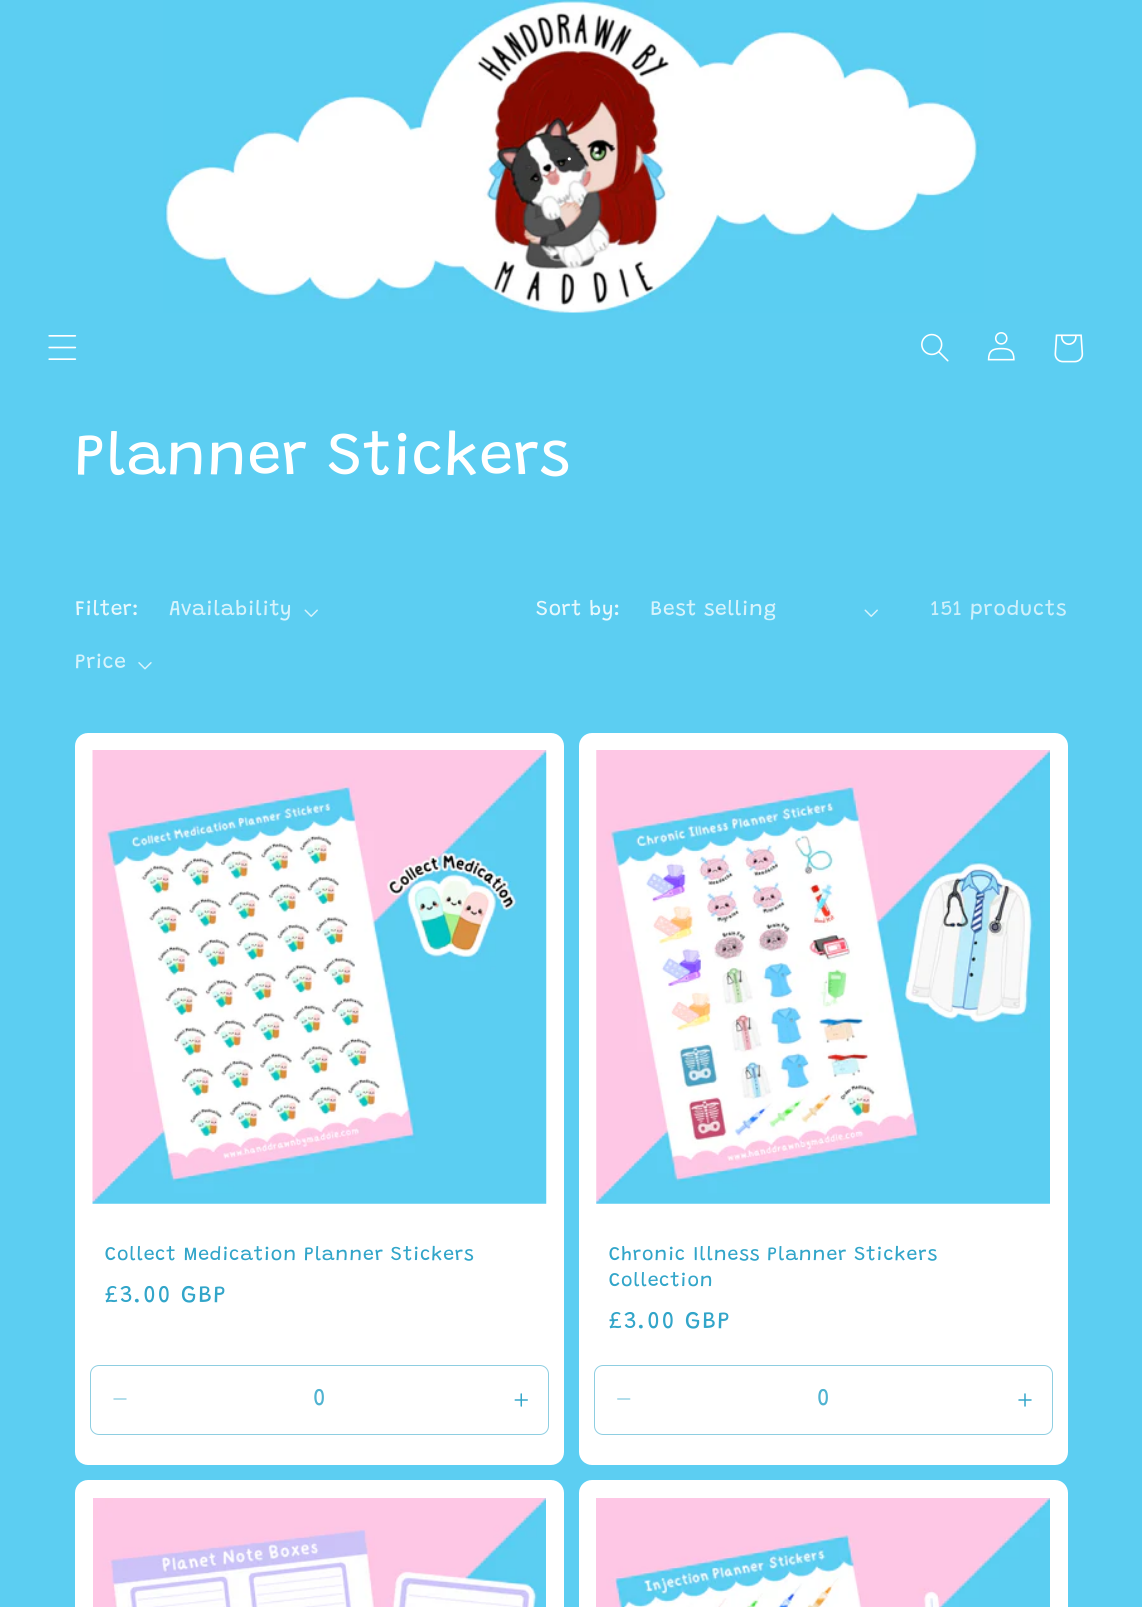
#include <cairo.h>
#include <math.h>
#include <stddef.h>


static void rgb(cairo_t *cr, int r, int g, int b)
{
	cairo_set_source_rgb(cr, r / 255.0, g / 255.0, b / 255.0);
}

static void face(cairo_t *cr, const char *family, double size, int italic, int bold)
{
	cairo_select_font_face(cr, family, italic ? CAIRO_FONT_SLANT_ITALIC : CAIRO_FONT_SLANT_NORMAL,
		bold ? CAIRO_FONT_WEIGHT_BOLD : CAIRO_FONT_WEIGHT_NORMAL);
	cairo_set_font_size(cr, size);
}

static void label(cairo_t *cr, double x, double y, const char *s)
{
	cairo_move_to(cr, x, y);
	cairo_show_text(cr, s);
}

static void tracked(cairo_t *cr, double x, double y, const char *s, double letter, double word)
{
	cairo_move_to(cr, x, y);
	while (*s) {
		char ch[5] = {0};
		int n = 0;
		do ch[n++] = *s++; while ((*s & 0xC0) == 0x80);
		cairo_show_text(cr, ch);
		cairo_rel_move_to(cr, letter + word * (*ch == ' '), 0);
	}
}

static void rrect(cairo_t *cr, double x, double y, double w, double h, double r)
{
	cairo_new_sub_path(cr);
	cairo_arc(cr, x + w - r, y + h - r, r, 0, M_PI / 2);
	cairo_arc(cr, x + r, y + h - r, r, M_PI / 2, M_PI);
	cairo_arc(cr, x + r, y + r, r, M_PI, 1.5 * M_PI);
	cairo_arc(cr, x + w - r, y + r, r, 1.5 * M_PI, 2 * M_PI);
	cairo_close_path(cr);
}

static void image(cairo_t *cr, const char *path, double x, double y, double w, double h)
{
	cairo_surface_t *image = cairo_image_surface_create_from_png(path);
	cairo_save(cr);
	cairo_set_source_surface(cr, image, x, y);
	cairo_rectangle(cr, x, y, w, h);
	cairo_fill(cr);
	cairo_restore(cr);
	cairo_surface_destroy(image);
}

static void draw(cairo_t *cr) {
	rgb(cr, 92, 206, 242);
	cairo_paint(cr);
	image(cr, "image0.png", 163, 0, 821, 313);
	face(cr, "Grandstander", 19.5, 0, 0);
	rgb(cr, 255, 255, 255);
	tracked(cr, 567, 160, ".", 1.5, 0);
	image(cr, "image1.png", 48, 335, 29, 25);
	image(cr, "image2.png", 921, 333, 28, 29);
	image(cr, "image3.png", 987, 332, 28, 29);
	image(cr, "image4.png", 1054, 334, 30, 29);
	face(cr, "Grandstander", 60, 0, 0);
	tracked(cr, 75, 474, "Planner Stickers", 0.9, 0);
	face(cr, "Grandstander", 21, 0, 0);
	rgb(cr, 231, 248, 253);
	tracked(cr, 75, 615, "Filter:", 0.6, 0);
	rgb(cr, 214, 243, 252);
	tracked(cr, 169, 615, "Availability", 0.6, 0);
	image(cr, "image5.png", 304, 609, 14, 8);
	tracked(cr, 75, 668, "Price", 0.6, 0);
	image(cr, "image6.png", 138, 662, 14, 8);
	rgb(cr, 231, 248, 253);
	tracked(cr, 536, 615, "Sort by:", 0.6, 0);
	rgb(cr, 214, 243, 252);
	tracked(cr, 650, 615, "Best selling", 0.6, 0);
	image(cr, "image5.png", 864, 609, 14, 8);
	rgb(cr, 206, 240, 251);
	tracked(cr, 931, 615, "151 products", 0.9, 0);
	rgb(cr, 255, 255, 255);
	rrect(cr, 75, 733, 489, 732, 13);
	cairo_fill(cr);
	image(cr, "image7.png", 92, 750, 455, 454);
	face(cr, "Grandstander", 19.5, 0, 0);
	rgb(cr, 50, 165, 201);
	tracked(cr, 105, 1260, "Collect Medication Planner Stickers", 0.9, 0);
	face(cr, "Grandstander", 24, 0, 0);
	tracked(cr, 105, 1302, "£3.00 GBP", 1.5, 0);
	image(cr, "image8.png", 113, 1398, 14, 2);
	image(cr, "image9.png", 514, 1393, 14, 14);
	rrect(cr, 90.5, 1365.5, 458, 69, 8.5);
	rgb(cr, 142, 206, 225);
	cairo_set_line_width(cr, 1);
	cairo_stroke(cr);
	rgb(cr, 81, 179, 209);
	label(cr, 313, 1405, "0");
	rgb(cr, 255, 255, 255);
	rrect(cr, 579, 733, 489, 732, 13);
	cairo_fill(cr);
	image(cr, "image10.png", 596, 750, 454, 454);
	face(cr, "Grandstander", 19.5, 0, 0);
	rgb(cr, 50, 165, 201);
	tracked(cr, 609, 1260, "Chronic Illness Planner Stickers", 0.9, 0);
	tracked(cr, 609, 1286, "Collection", 0.9, 0);
	face(cr, "Grandstander", 24, 0, 0);
	tracked(cr, 609, 1328, "£3.00 GBP", 1.5, 0);
	image(cr, "image11.png", 617, 1398, 14, 2);
	image(cr, "image12.png", 1018, 1393, 14, 14);
	rrect(cr, 594.5, 1365.5, 458, 69, 8.5);
	rgb(cr, 142, 206, 225);
	cairo_stroke(cr);
	rgb(cr, 81, 179, 209);
	label(cr, 817, 1405, "0");
	rgb(cr, 255, 255, 255);
	rrect(cr, 75, 1480, 489, 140, 13);
	cairo_fill(cr);
	image(cr, "image13.png", 93, 1498, 453, 109);
	rrect(cr, 579, 1480, 489, 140, 13);
	cairo_fill(cr);
	image(cr, "image14.png", 596, 1498, 454, 109);
}

int main(void) {
	cairo_surface_t *surface = cairo_image_surface_create(CAIRO_FORMAT_RGB24, 1142, 1607);
	cairo_t *cr = cairo_create(surface);
	cairo_font_options_t *options = cairo_font_options_create();
	cairo_font_options_set_hint_metrics(options, CAIRO_HINT_METRICS_OFF);
	cairo_font_options_set_hint_style(options, CAIRO_HINT_STYLE_NONE);
	cairo_set_font_options(cr, options);
	cairo_set_miter_limit(cr, 4);
	draw(cr);
	cairo_surface_write_to_png(surface, "render.png");
	cairo_font_options_destroy(options);
	cairo_destroy(cr);
	cairo_surface_destroy(surface);
	return 0;
}
